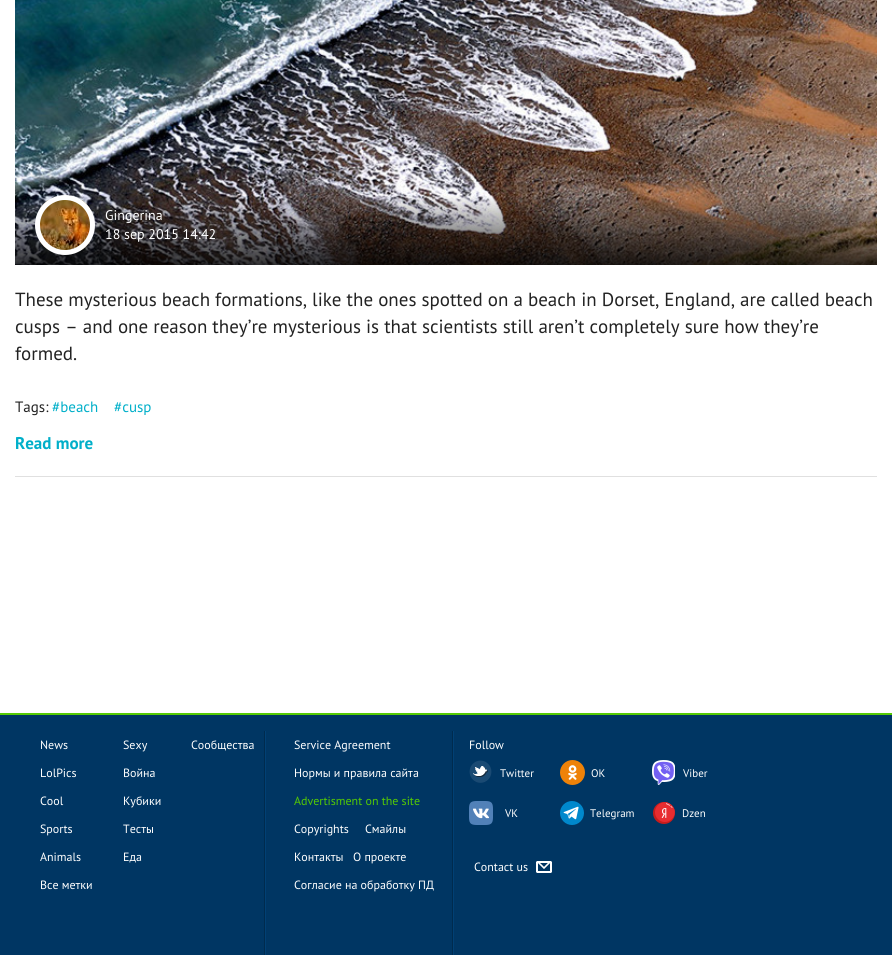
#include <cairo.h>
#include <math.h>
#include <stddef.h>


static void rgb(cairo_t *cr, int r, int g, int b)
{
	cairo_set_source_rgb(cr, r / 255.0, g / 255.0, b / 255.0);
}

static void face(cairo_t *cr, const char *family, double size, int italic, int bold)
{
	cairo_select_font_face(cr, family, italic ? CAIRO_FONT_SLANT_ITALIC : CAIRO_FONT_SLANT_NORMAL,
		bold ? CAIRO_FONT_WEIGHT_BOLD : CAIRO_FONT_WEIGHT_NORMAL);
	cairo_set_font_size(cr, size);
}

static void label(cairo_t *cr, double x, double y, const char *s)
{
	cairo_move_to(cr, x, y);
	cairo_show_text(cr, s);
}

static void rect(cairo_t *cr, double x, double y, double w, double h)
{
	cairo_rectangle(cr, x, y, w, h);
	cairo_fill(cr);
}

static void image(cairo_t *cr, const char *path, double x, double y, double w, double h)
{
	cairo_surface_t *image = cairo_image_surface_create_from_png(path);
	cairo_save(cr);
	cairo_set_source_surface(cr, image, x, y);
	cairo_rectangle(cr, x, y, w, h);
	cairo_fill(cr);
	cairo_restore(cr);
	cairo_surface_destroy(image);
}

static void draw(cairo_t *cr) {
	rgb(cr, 255, 255, 255);
	cairo_paint(cr);
	rgb(cr, 224, 224, 224);
	rect(cr, 15, 476, 862, 1);
	image(cr, "image0.png", 15, 0, 862, 265);
	image(cr, "image1.png", 40, 200, 50, 50);
	cairo_arc(cr, 65, 225, 27.5, 0, 2 * M_PI);
	rgb(cr, 255, 255, 255);
	cairo_set_line_width(cr, 5);
	cairo_stroke(cr);
	face(cr, "PT Sans", 14, 0, 0);
	label(cr, 105, 220, "Gingerina");
	label(cr, 105, 239, "18 sep 2015 14:42");
	face(cr, "PT Sans", 19, 0, 0);
	rgb(cr, 34, 34, 34);
	label(cr, 15, 306, "These mysterious beach formations, like the ones spotted on a beach in Dorset, England, are called beach");
	label(cr, 15, 333, "cusps – and one reason they’re mysterious is that scientists still aren’t completely sure how they’re");
	label(cr, 15, 360, "formed.");
	face(cr, "PT Sans", 15, 0, 0);
	label(cr, 15, 412, "Tags:");
	rgb(cr, 0, 175, 201);
	label(cr, 52, 412, "#beach");
	label(cr, 114, 412, "#cusp");
	face(cr, "PT Sans", 17, 0, 1);
	label(cr, 15, 449, "Read more");
	rgb(cr, 0, 54, 99);
	rect(cr, 0, 715, 892, 240);
	rgb(cr, 85, 202, 3);
	rect(cr, 0, 713, 892, 2);
	face(cr, "PT Sans", 12, 0, 0);
	rgb(cr, 255, 255, 255);
	label(cr, 40, 749, "News");
	label(cr, 40, 777, "LolPics");
	label(cr, 40, 805, "Cool");
	label(cr, 40, 833, "Sports");
	label(cr, 40, 861, "Animals");
	label(cr, 40, 889, "Все метки");
	label(cr, 123, 749, "Sexy");
	label(cr, 123, 777, "Война");
	label(cr, 123, 805, "Кубики");
	label(cr, 123, 833, "Тесты");
	label(cr, 123, 861, "Еда");
	label(cr, 191, 749, "Сообщества");
	rgb(cr, 1, 64, 116);
	rect(cr, 265, 731, 1, 224);
	rgb(cr, 0, 43, 78);
	rect(cr, 264, 731, 1, 224);
	rgb(cr, 255, 255, 255);
	label(cr, 294, 749, "Service Agreement");
	label(cr, 294, 777, "Нормы и правила сайта");
	rgb(cr, 85, 202, 3);
	label(cr, 294, 805, "Advertisment on the site");
	rgb(cr, 255, 255, 255);
	label(cr, 294, 833, "Copyrights");
	label(cr, 365, 833, "Смайлы");
	label(cr, 294, 861, "Контакты");
	label(cr, 353, 861, "О проекте");
	label(cr, 294, 889, "Согласие на обработку ПД");
	rgb(cr, 1, 64, 116);
	rect(cr, 453, 731, 1, 224);
	rgb(cr, 0, 43, 78);
	rect(cr, 452, 731, 1, 224);
	rgb(cr, 255, 255, 255);
	label(cr, 469, 749, "Follow");
	image(cr, "image2.png", 469, 760, 23, 23);
	face(cr, "PT Sans", 11, 0, 0);
	label(cr, 500, 777, "Twitter");
	image(cr, "image3.png", 560, 760, 25, 25);
	label(cr, 591, 777, "OK");
	image(cr, "image4.png", 652, 760, 23, 25);
	label(cr, 683, 777, "Viber");
	image(cr, "image5.png", 469, 801, 24, 24);
	label(cr, 505, 817, "VK");
	image(cr, "image6.png", 560, 801, 24, 24);
	label(cr, 590, 817, "Telegram");
	image(cr, "image7.png", 653, 802, 22, 22);
	label(cr, 682, 817, "Dzen");
	face(cr, "PT Sans", 12, 0, 0);
	label(cr, 474, 871, "Contact us");
	image(cr, "image8.png", 536, 861, 16, 12);
}

int main(void) {
	cairo_surface_t *surface = cairo_image_surface_create(CAIRO_FORMAT_RGB24, 892, 955);
	cairo_t *cr = cairo_create(surface);
	cairo_font_options_t *options = cairo_font_options_create();
	cairo_font_options_set_hint_metrics(options, CAIRO_HINT_METRICS_OFF);
	cairo_font_options_set_hint_style(options, CAIRO_HINT_STYLE_NONE);
	cairo_set_font_options(cr, options);
	cairo_set_miter_limit(cr, 4);
	draw(cr);
	cairo_surface_write_to_png(surface, "render.png");
	cairo_font_options_destroy(options);
	cairo_destroy(cr);
	cairo_surface_destroy(surface);
	return 0;
}
